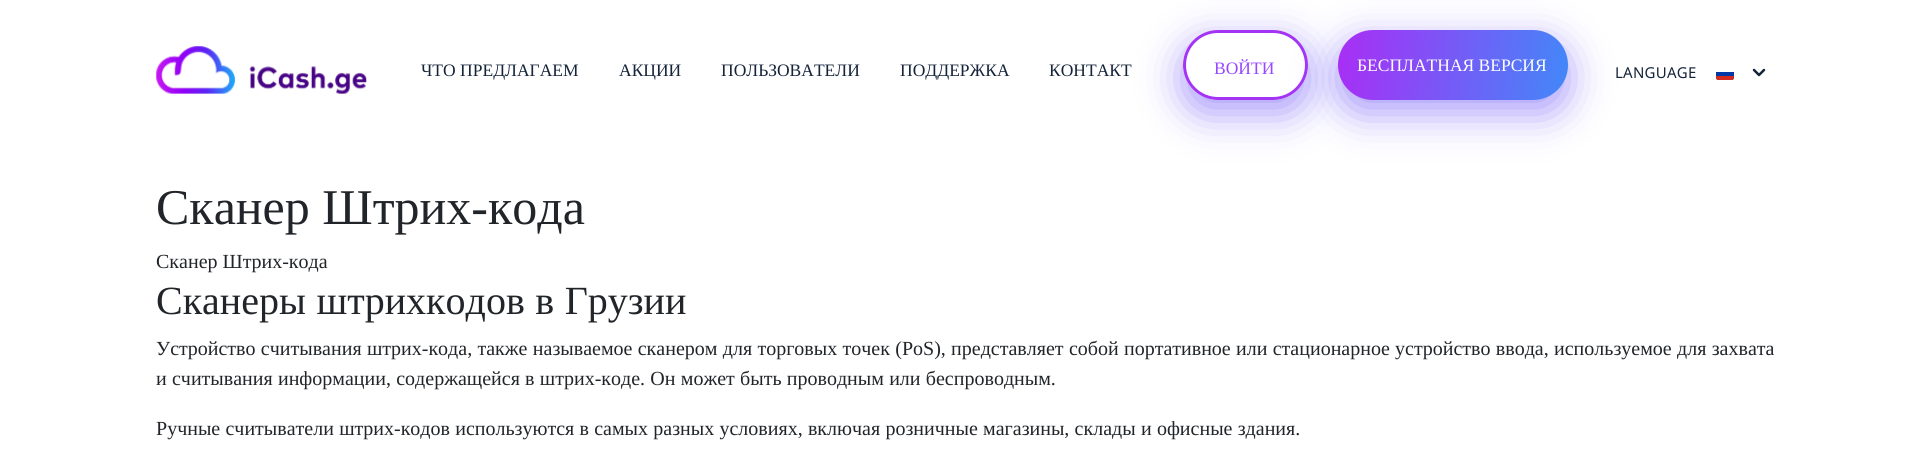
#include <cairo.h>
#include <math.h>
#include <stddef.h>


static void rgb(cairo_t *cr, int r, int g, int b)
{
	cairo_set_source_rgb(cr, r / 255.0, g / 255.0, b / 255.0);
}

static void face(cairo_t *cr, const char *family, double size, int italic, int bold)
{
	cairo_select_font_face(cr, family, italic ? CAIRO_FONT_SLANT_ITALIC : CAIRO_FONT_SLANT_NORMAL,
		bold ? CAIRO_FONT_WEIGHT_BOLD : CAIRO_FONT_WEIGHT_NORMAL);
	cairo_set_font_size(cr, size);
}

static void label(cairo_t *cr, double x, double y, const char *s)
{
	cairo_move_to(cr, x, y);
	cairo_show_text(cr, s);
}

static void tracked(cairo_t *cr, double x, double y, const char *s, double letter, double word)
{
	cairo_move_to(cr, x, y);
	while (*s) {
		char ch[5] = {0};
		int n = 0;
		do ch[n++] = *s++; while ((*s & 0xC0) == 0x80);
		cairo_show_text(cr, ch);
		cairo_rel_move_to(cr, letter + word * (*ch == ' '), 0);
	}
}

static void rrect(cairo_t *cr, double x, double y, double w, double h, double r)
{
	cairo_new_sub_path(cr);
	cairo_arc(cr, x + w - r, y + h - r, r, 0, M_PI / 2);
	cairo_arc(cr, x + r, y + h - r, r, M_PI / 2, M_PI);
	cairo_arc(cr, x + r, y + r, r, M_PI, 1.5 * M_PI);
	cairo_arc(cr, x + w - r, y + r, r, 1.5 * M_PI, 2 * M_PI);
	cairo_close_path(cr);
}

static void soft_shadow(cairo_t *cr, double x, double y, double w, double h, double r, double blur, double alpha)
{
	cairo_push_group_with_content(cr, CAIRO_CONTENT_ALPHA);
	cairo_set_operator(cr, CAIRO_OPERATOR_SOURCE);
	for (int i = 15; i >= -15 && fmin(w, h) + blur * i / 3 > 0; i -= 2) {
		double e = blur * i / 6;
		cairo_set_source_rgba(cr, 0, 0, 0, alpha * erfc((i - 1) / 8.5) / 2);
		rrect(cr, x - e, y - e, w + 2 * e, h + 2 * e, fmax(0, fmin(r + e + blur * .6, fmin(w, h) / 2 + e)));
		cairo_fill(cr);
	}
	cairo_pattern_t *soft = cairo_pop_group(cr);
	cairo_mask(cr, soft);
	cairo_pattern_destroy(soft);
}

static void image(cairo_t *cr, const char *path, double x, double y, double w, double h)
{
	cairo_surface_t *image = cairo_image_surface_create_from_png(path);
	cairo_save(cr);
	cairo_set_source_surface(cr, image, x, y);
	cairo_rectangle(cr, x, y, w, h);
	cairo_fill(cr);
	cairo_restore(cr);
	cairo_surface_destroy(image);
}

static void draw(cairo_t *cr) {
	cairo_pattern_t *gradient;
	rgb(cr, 255, 255, 255);
	cairo_paint(cr);
	image(cr, "image0.png", 156, 46, 211, 48);
	face(cr, "Liberation Serif", 17.5, 0, 0);
	rgb(cr, 21, 36, 58);
	label(cr, 421, 76, "ЧТО ПРЕДЛАГАЕМ");
	label(cr, 619, 76, "АКЦИИ");
	label(cr, 721, 76, "ПОЛЬЗОВАТЕЛИ");
	label(cr, 900, 76, "ПОДДЕРЖКА");
	label(cr, 1049, 76, "КОНТАКТ");
	cairo_save(cr);
	cairo_set_fill_rule(cr, CAIRO_FILL_RULE_EVEN_ODD);
	cairo_new_path(cr);
	cairo_move_to(cr, 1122, 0);
	cairo_line_to(cr, 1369, 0);
	cairo_line_to(cr, 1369, 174);
	cairo_line_to(cr, 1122, 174);
	cairo_close_path(cr);
	cairo_move_to(cr, 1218, 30);
	cairo_line_to(cr, 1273, 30);
	cairo_curve_to(cr, 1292.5, 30, 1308, 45.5, 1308, 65);
	cairo_curve_to(cr, 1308, 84.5, 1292.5, 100, 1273, 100);
	cairo_line_to(cr, 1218, 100);
	cairo_curve_to(cr, 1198.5, 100, 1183, 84.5, 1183, 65);
	cairo_curve_to(cr, 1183, 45.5, 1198.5, 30, 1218, 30);
	cairo_close_path(cr);
	cairo_clip(cr);
	rgb(cr, 115, 94, 247);
	soft_shadow(cr, 1183, 43, 125, 70, 35, 20, 0.63);
	cairo_restore(cr);
	rrect(cr, 1184.5, 31.5, 122, 67, 33.5);
	rgb(cr, 163, 52, 246);
	cairo_set_line_width(cr, 3);
	cairo_stroke(cr);
	rgb(cr, 151, 71, 255);
	label(cr, 1214, 74, "ВОЙТИ");
	rgb(cr, 115, 94, 247);
	soft_shadow(cr, 1338, 43, 230, 70, 35, 20, 0.63);
	gradient = cairo_pattern_create_linear(1276, 40, 1640, 91);
	cairo_pattern_add_color_stop_rgba(gradient, 0, 0.769, 0.086, 0.957, 1);
	cairo_pattern_add_color_stop_rgba(gradient, 1, 0.137, 0.639, 0.976, 1);
	cairo_set_source(cr, gradient);
	cairo_pattern_destroy(gradient);
	rrect(cr, 1338, 30, 230, 70, 35);
	cairo_fill(cr);
	rgb(cr, 255, 255, 255);
	label(cr, 1357, 71, "БЕСПЛАТНАЯ ВЕРСИЯ");
	face(cr, "Noto Sans Georgian", 15, 0, 0);
	rgb(cr, 21, 36, 58);
	tracked(cr, 1615, 78, "LANGUAGE", 0.25, 0);
	rgb(cr, 0, 57, 166);
	cairo_new_path(cr);
	cairo_move_to(cr, 1716, 72);
	cairo_line_to(cr, 1734, 72);
	cairo_line_to(cr, 1734, 77.5);
	cairo_curve_to(cr, 1734, 79, 1733, 80, 1731.5, 80);
	cairo_line_to(cr, 1718.5, 80);
	cairo_curve_to(cr, 1717, 80, 1716, 79, 1716, 77.5);
	cairo_close_path(cr);
	cairo_fill(cr);
	cairo_new_path(cr);
	cairo_move_to(cr, 1754, 70);
	cairo_line_to(cr, 1759, 75);
	cairo_line_to(cr, 1764, 70);
	rgb(cr, 21, 36, 58);
	cairo_set_line_width(cr, 2.5);
	cairo_set_line_cap(cr, CAIRO_LINE_CAP_ROUND);
	cairo_set_line_join(cr, CAIRO_LINE_JOIN_ROUND);
	cairo_stroke(cr);
	rgb(cr, 213, 43, 30);
	cairo_new_path(cr);
	cairo_move_to(cr, 1716, 76);
	cairo_line_to(cr, 1734, 76);
	cairo_line_to(cr, 1734, 77.5);
	cairo_curve_to(cr, 1734, 79, 1733, 80, 1731.5, 80);
	cairo_line_to(cr, 1718.5, 80);
	cairo_curve_to(cr, 1717, 80, 1716, 79, 1716, 77.5);
	cairo_close_path(cr);
	cairo_fill(cr);
	face(cr, "Liberation Serif", 50, 0, 0);
	rgb(cr, 33, 37, 41);
	label(cr, 156, 224, "Сканер Штрих-кода");
	face(cr, "Liberation Serif", 20, 0, 0);
	label(cr, 156, 268, "Сканер Штрих-кода");
	face(cr, "Liberation Serif", 40, 0, 0);
	tracked(cr, 156, 314, "Сканеры штрихкодов в Грузии", 0, 0.5);
	face(cr, "Liberation Serif", 20, 0, 0);
	tracked(cr, 156, 355, "Устройство считывания штрих-кода, также называемое сканером для торговых точек (PoS), представляет собой портативное или стационарное устройство ввода, используемое для захвата", 0, 0.3);
	tracked(cr, 156, 385, "и считывания информации, содержащейся в штрих-коде. Он может быть проводным или беспроводным.", 0, 0.25);
	tracked(cr, 156, 435, "Ручные считыватели штрих-кодов используются в самых разных условиях, включая розничные магазины, склады и офисные здания.", 0, 0.25);
}

int main(void) {
	cairo_surface_t *surface = cairo_image_surface_create(CAIRO_FORMAT_RGB24, 1931, 455);
	cairo_t *cr = cairo_create(surface);
	cairo_font_options_t *options = cairo_font_options_create();
	cairo_font_options_set_hint_metrics(options, CAIRO_HINT_METRICS_OFF);
	cairo_font_options_set_hint_style(options, CAIRO_HINT_STYLE_NONE);
	cairo_set_font_options(cr, options);
	cairo_set_miter_limit(cr, 4);
	draw(cr);
	cairo_surface_write_to_png(surface, "render.png");
	cairo_font_options_destroy(options);
	cairo_destroy(cr);
	cairo_surface_destroy(surface);
	return 0;
}
